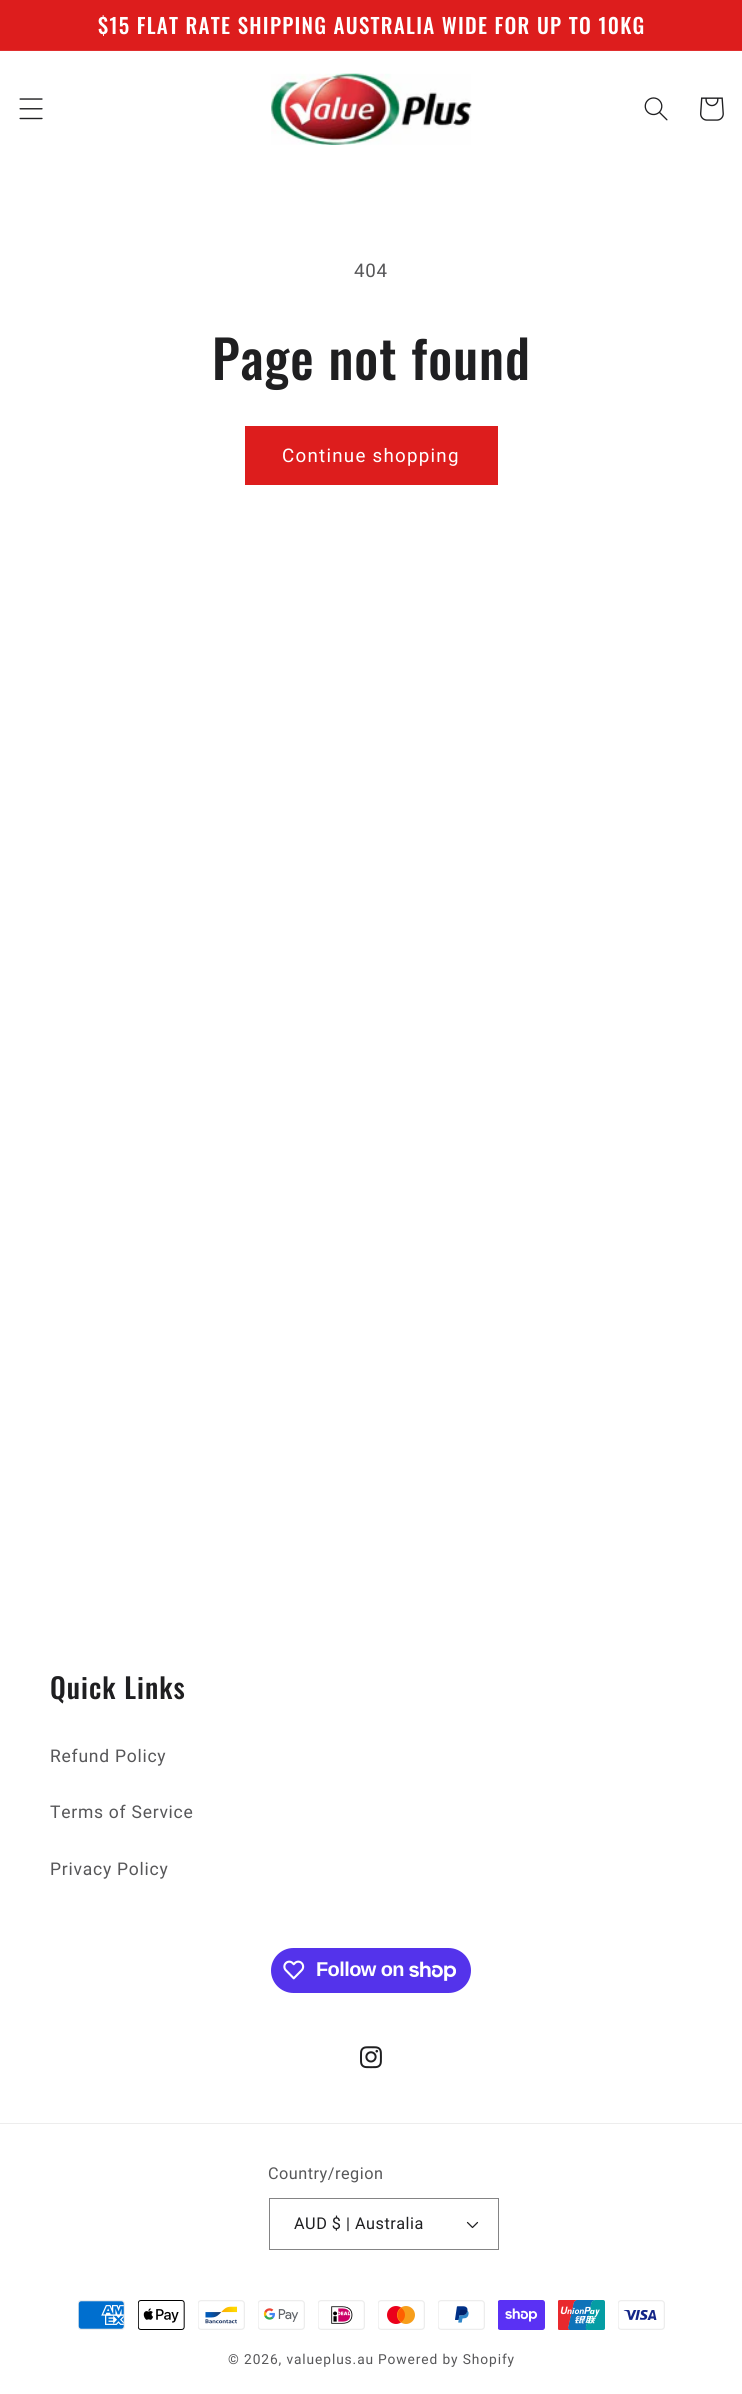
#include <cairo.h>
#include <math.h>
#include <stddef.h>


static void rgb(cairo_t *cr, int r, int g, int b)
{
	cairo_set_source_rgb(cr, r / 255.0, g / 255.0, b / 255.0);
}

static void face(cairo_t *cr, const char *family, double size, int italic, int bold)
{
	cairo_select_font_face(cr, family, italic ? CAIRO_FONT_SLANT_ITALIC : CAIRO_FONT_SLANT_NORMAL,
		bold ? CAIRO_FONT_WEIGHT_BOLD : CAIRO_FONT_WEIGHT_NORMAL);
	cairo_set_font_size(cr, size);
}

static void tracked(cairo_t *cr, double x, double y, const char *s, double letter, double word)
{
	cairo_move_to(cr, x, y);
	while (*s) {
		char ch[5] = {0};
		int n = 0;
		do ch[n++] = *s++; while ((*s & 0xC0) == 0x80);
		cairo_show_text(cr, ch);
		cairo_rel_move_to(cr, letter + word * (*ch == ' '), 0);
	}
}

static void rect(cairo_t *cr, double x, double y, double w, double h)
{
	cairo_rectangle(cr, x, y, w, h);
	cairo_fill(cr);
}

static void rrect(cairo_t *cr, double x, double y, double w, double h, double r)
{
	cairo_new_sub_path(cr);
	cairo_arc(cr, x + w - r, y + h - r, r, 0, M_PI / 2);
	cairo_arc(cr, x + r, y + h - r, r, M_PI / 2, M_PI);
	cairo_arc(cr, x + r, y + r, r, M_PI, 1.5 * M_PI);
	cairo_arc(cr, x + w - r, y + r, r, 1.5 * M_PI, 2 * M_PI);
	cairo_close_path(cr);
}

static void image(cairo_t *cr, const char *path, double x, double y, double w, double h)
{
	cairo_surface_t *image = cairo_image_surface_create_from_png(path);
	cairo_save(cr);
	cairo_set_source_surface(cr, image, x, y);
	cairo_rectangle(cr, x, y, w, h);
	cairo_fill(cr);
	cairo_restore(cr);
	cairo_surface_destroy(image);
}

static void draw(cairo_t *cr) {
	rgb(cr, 255, 255, 255);
	cairo_paint(cr);
	rgb(cr, 221, 29, 29);
	rect(cr, 0, 0, 742, 50);
	rgb(cr, 224, 47, 47);
	rect(cr, 0, 50, 742, 1);
	face(cr, "Oswald Medium", 21, 0, 0);
	rgb(cr, 255, 255, 255);
	tracked(cr, 98, 34, "$15 FLAT RATE SHIPPING AUSTRALIA WIDE FOR UP TO 10KG", 1.25, 0);
	image(cr, "image0.png", 19, 98, 24, 22);
	image(cr, "image1.png", 271, 73, 201, 72);
	image(cr, "image2.png", 644, 97, 24, 24);
	image(cr, "image3.png", 700, 97, 24, 24);
	face(cr, "Roboto", 18.75, 0, 0);
	rgb(cr, 87, 87, 89);
	tracked(cr, 354, 277, "404", 0.75, 0);
	face(cr, "Oswald Medium", 52.5, 0, 0);
	rgb(cr, 31, 31, 33);
	tracked(cr, 212, 380, "Page not found", 1, 0);
	rgb(cr, 221, 29, 29);
	rect(cr, 245, 426, 253, 59);
	face(cr, "Roboto", 18.75, 0, 0);
	rgb(cr, 255, 255, 255);
	tracked(cr, 282, 462, "Continue shopping", 1.25, 0);
	face(cr, "Oswald Medium", 28, 0, 0);
	rgb(cr, 31, 31, 33);
	tracked(cr, 50, 1699, "Quick Links", 1, 0);
	face(cr, "Roboto", 17.5, 0, 0);
	rgb(cr, 87, 87, 89);
	tracked(cr, 50, 1762, "Refund Policy", 0.75, 0);
	tracked(cr, 50, 1818, "Terms of Service", 0.75, 0);
	tracked(cr, 50, 1875, "Privacy Policy", 0.75, 0);
	rgb(cr, 84, 51, 235);
	rrect(cr, 271, 1948, 200, 45, 22.5);
	cairo_fill(cr);
	image(cr, "image4.png", 283, 1960, 22, 20);
	face(cr, "Liberation Sans", 20, 0, 1);
	rgb(cr, 255, 255, 255);
	tracked(cr, 316, 1976, "Follow on", -0.6, 0);
	image(cr, "image5.png", 409, 1961, 47, 20);
	image(cr, "image6.png", 360, 2046, 22, 23);
	rgb(cr, 237, 237, 237);
	rect(cr, 0, 2123, 742, 1);
	face(cr, "Roboto", 16.25, 0, 0);
	rgb(cr, 87, 87, 89);
	tracked(cr, 268, 2179, "Country/region", 0.5, 0);
	image(cr, "image7.png", 466, 2221, 13, 8);
	cairo_rectangle(cr, 269.5, 2198.5, 229, 51);
	rgb(cr, 132, 132, 133);
	cairo_set_line_width(cr, 1);
	cairo_stroke(cr);
	rgb(cr, 31, 31, 33);
	tracked(cr, 294, 2229, "AUD $ | Australia", 0.5, 0);
	image(cr, "image8.png", 78, 2300, 47, 30);
	image(cr, "image9.png", 138, 2300, 47, 30);
	image(cr, "image10.png", 198, 2300, 47, 30);
	image(cr, "image11.png", 258, 2300, 47, 30);
	image(cr, "image12.png", 318, 2300, 47, 30);
	image(cr, "image13.png", 378, 2300, 47, 30);
	image(cr, "image14.png", 438, 2300, 47, 30);
	image(cr, "image15.png", 498, 2300, 47, 30);
	image(cr, "image16.png", 558, 2300, 47, 30);
	image(cr, "image17.png", 618, 2300, 47, 30);
	face(cr, "Roboto", 13.75, 0, 0);
	rgb(cr, 87, 87, 89);
	tracked(cr, 228, 2364, "© 2026, valueplus.au", 0.9, 0);
	tracked(cr, 378, 2364, "Powered by Shopify", 0.9, 0);
}

int main(void) {
	cairo_surface_t *surface = cairo_image_surface_create(CAIRO_FORMAT_RGB24, 742, 2394);
	cairo_t *cr = cairo_create(surface);
	cairo_font_options_t *options = cairo_font_options_create();
	cairo_font_options_set_hint_metrics(options, CAIRO_HINT_METRICS_OFF);
	cairo_font_options_set_hint_style(options, CAIRO_HINT_STYLE_NONE);
	cairo_set_font_options(cr, options);
	cairo_set_miter_limit(cr, 4);
	draw(cr);
	cairo_surface_write_to_png(surface, "render.png");
	cairo_font_options_destroy(options);
	cairo_destroy(cr);
	cairo_surface_destroy(surface);
	return 0;
}
